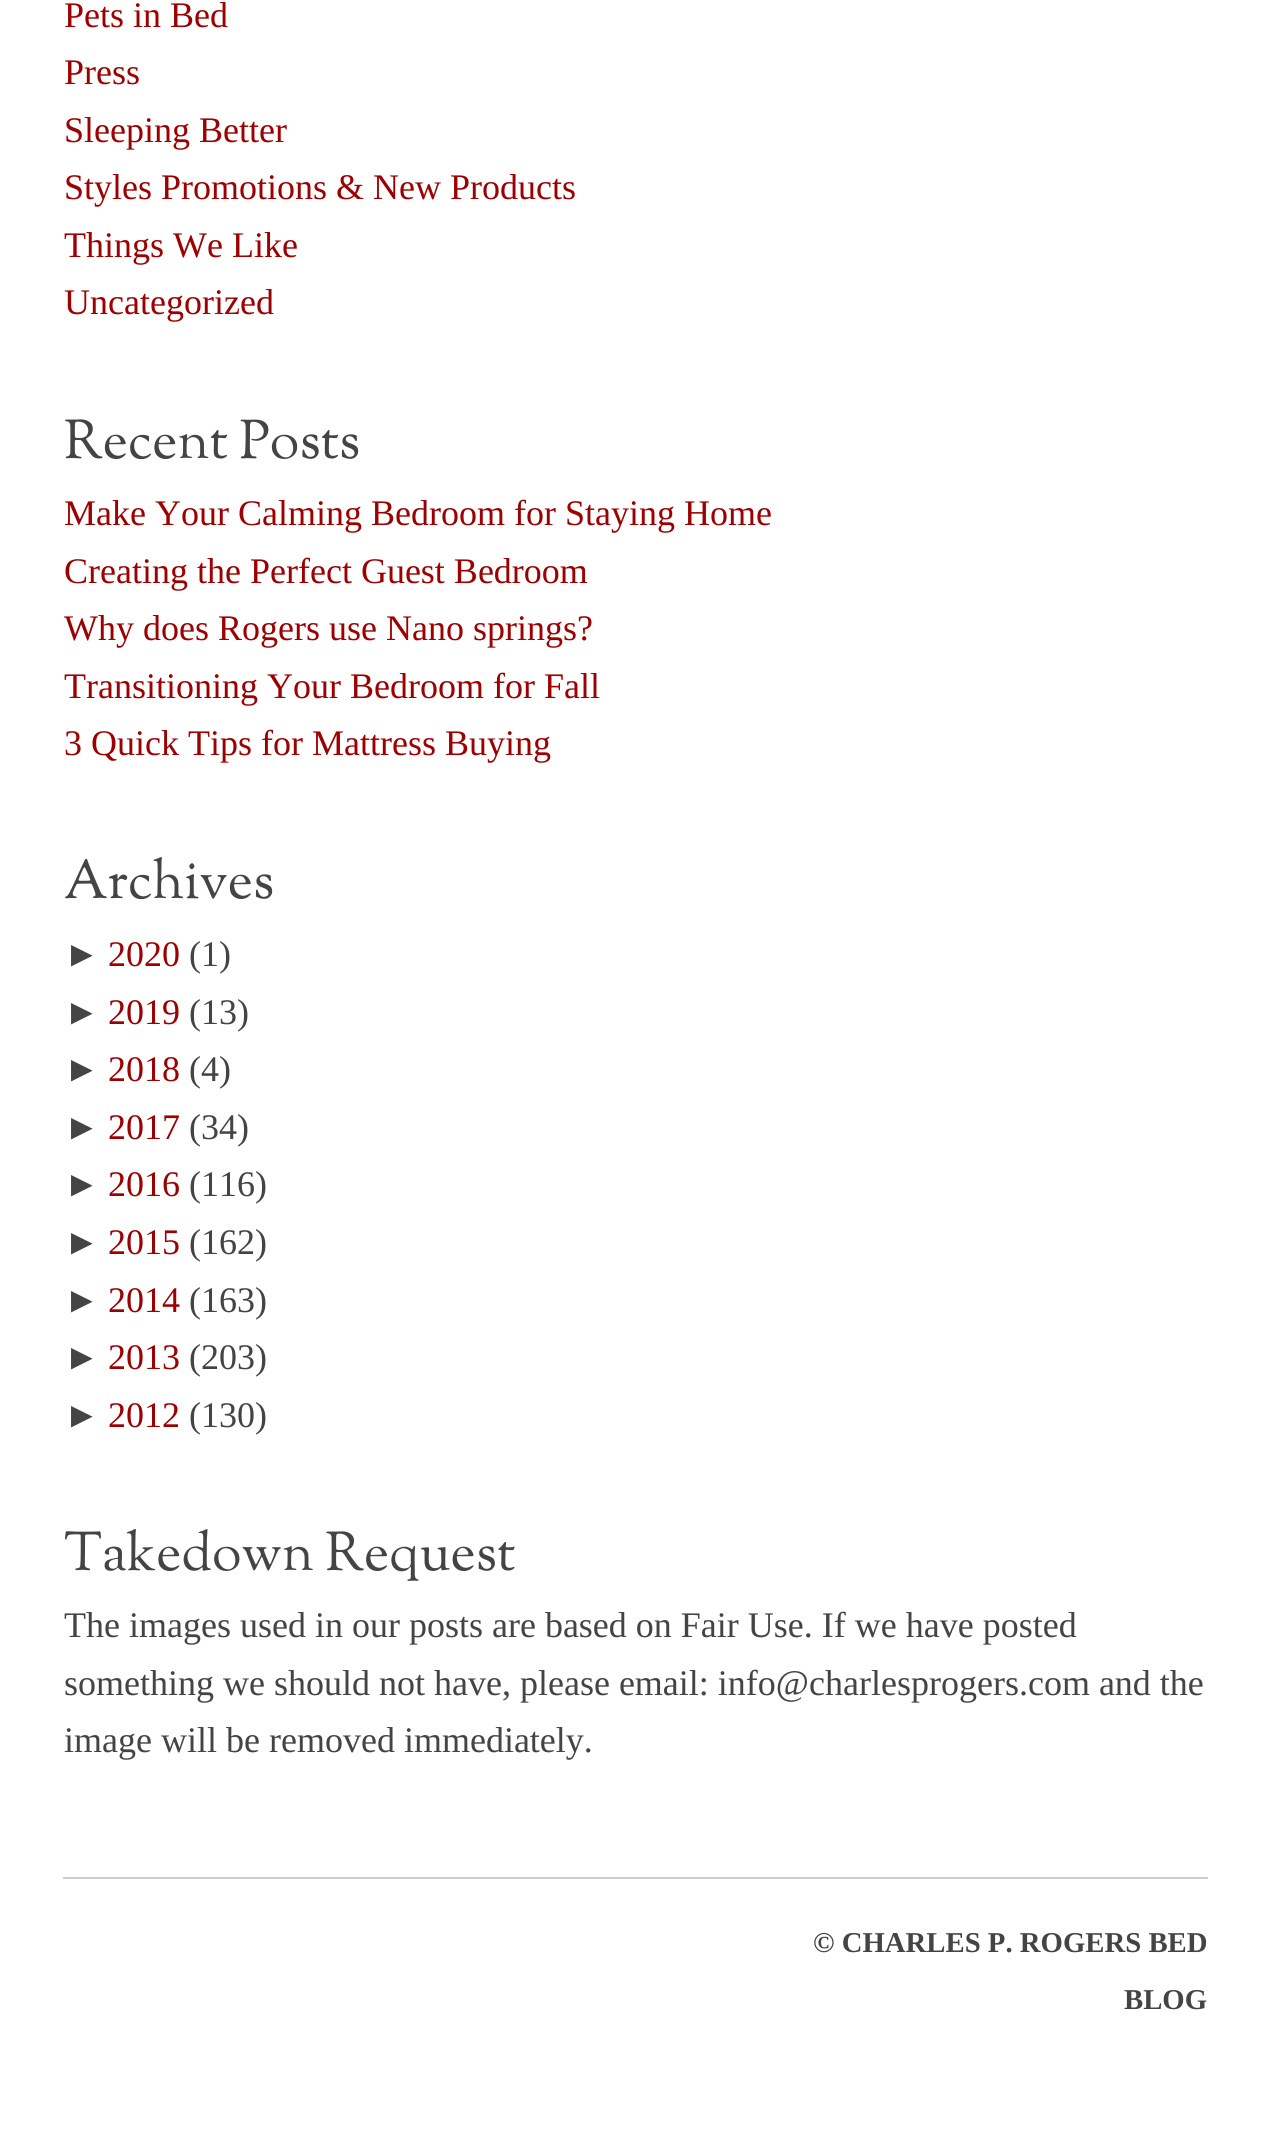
#include <cairo.h>
#include <math.h>
#include <stddef.h>


static void rgb(cairo_t *cr, int r, int g, int b)
{
	cairo_set_source_rgb(cr, r / 255.0, g / 255.0, b / 255.0);
}

static void face(cairo_t *cr, const char *family, double size, int italic, int bold)
{
	cairo_select_font_face(cr, family, italic ? CAIRO_FONT_SLANT_ITALIC : CAIRO_FONT_SLANT_NORMAL,
		bold ? CAIRO_FONT_WEIGHT_BOLD : CAIRO_FONT_WEIGHT_NORMAL);
	cairo_set_font_size(cr, size);
}

static void label(cairo_t *cr, double x, double y, const char *s)
{
	cairo_move_to(cr, x, y);
	cairo_show_text(cr, s);
}

static void rect(cairo_t *cr, double x, double y, double w, double h)
{
	cairo_rectangle(cr, x, y, w, h);
	cairo_fill(cr);
}

static void draw(cairo_t *cr) {
	rgb(cr, 255, 255, 255);
	cairo_paint(cr);
	face(cr, "Liberation Serif", 36, 0, 0);
	rgb(cr, 156, 0, 1);
	label(cr, 64, 27, "Pets in Bed");
	label(cr, 64, 84, "Press");
	label(cr, 64, 142, "Sleeping Better");
	label(cr, 64, 199, "Styles Promotions & New Products");
	label(cr, 64, 257, "Things We Like");
	label(cr, 64, 314, "Uncategorized");
	face(cr, "OFL Sorts Mill Goudy TT Medium", 54, 0, 0);
	rgb(cr, 68, 68, 68);
	label(cr, 64, 458, "Recent Posts");
	face(cr, "Liberation Serif", 36, 0, 0);
	rgb(cr, 156, 0, 1);
	label(cr, 64, 525, "Make Your Calming Bedroom for Staying Home");
	label(cr, 64, 583, "Creating the Perfect Guest Bedroom");
	label(cr, 64, 640, "Why does Rogers use Nano springs?");
	label(cr, 64, 698, "Transitioning Your Bedroom for Fall");
	label(cr, 64, 755, "3 Quick Tips for Mattress Buying");
	face(cr, "OFL Sorts Mill Goudy TT Medium", 54, 0, 0);
	rgb(cr, 68, 68, 68);
	label(cr, 64, 898, "Archives");
	face(cr, "Liberation Serif", 36, 0, 0);
	label(cr, 64, 966, "►");
	rgb(cr, 156, 0, 1);
	label(cr, 108, 966, "2020");
	rgb(cr, 68, 68, 68);
	label(cr, 189, 966, "(1)");
	label(cr, 64, 1024, "►");
	rgb(cr, 156, 0, 1);
	label(cr, 108, 1024, "2019");
	rgb(cr, 68, 68, 68);
	label(cr, 189, 1024, "(13)");
	label(cr, 64, 1081, "►");
	rgb(cr, 156, 0, 1);
	label(cr, 108, 1081, "2018");
	rgb(cr, 68, 68, 68);
	label(cr, 189, 1081, "(4)");
	label(cr, 64, 1139, "►");
	rgb(cr, 156, 0, 1);
	label(cr, 108, 1139, "2017");
	rgb(cr, 68, 68, 68);
	label(cr, 189, 1139, "(34)");
	label(cr, 64, 1196, "►");
	rgb(cr, 156, 0, 1);
	label(cr, 108, 1196, "2016");
	rgb(cr, 68, 68, 68);
	label(cr, 189, 1196, "(116)");
	label(cr, 64, 1254, "►");
	rgb(cr, 156, 0, 1);
	label(cr, 108, 1254, "2015");
	rgb(cr, 68, 68, 68);
	label(cr, 189, 1254, "(162)");
	label(cr, 64, 1312, "►");
	rgb(cr, 156, 0, 1);
	label(cr, 108, 1312, "2014");
	rgb(cr, 68, 68, 68);
	label(cr, 189, 1312, "(163)");
	label(cr, 64, 1369, "►");
	rgb(cr, 156, 0, 1);
	label(cr, 108, 1369, "2013");
	rgb(cr, 68, 68, 68);
	label(cr, 189, 1369, "(203)");
	label(cr, 64, 1427, "►");
	rgb(cr, 156, 0, 1);
	label(cr, 108, 1427, "2012");
	rgb(cr, 68, 68, 68);
	label(cr, 189, 1427, "(130)");
	face(cr, "OFL Sorts Mill Goudy TT Medium", 54, 0, 0);
	label(cr, 64, 1570, "Takedown Request");
	face(cr, "Liberation Serif", 36, 0, 0);
	label(cr, 64, 1637, "The images used in our posts are based on Fair Use. If we have posted");
	label(cr, 64, 1695, "something we should not have, please email: info@charlesprogers.com and the");
	label(cr, 64, 1752, "image will be removed immediately.");
	rgb(cr, 204, 204, 204);
	rect(cr, 63, 1877, 1145, 2);
	face(cr, "Liberation Serif", 28.75, 0, 1);
	rgb(cr, 68, 68, 68);
	label(cr, 813, 1952, "© CHARLES P. ROGERS BED");
	label(cr, 1124, 2009, "BLOG");
}

int main(void) {
	cairo_surface_t *surface = cairo_image_surface_create(CAIRO_FORMAT_RGB24, 1270, 2139);
	cairo_t *cr = cairo_create(surface);
	cairo_font_options_t *options = cairo_font_options_create();
	cairo_font_options_set_hint_metrics(options, CAIRO_HINT_METRICS_OFF);
	cairo_font_options_set_hint_style(options, CAIRO_HINT_STYLE_NONE);
	cairo_set_font_options(cr, options);
	cairo_set_miter_limit(cr, 4);
	draw(cr);
	cairo_surface_write_to_png(surface, "render.png");
	cairo_font_options_destroy(options);
	cairo_destroy(cr);
	cairo_surface_destroy(surface);
	return 0;
}
